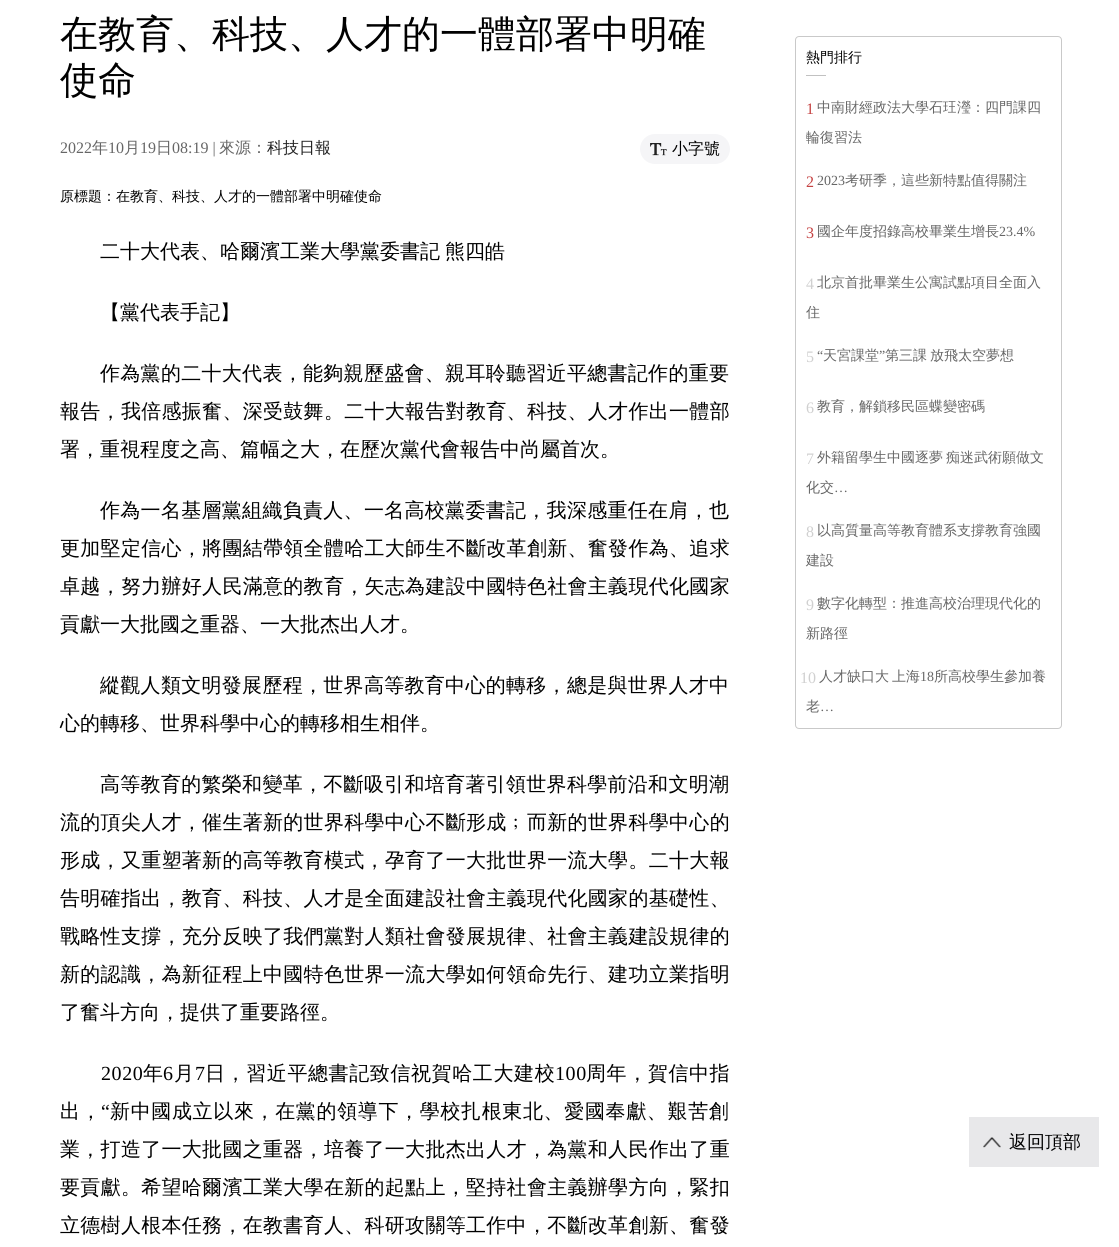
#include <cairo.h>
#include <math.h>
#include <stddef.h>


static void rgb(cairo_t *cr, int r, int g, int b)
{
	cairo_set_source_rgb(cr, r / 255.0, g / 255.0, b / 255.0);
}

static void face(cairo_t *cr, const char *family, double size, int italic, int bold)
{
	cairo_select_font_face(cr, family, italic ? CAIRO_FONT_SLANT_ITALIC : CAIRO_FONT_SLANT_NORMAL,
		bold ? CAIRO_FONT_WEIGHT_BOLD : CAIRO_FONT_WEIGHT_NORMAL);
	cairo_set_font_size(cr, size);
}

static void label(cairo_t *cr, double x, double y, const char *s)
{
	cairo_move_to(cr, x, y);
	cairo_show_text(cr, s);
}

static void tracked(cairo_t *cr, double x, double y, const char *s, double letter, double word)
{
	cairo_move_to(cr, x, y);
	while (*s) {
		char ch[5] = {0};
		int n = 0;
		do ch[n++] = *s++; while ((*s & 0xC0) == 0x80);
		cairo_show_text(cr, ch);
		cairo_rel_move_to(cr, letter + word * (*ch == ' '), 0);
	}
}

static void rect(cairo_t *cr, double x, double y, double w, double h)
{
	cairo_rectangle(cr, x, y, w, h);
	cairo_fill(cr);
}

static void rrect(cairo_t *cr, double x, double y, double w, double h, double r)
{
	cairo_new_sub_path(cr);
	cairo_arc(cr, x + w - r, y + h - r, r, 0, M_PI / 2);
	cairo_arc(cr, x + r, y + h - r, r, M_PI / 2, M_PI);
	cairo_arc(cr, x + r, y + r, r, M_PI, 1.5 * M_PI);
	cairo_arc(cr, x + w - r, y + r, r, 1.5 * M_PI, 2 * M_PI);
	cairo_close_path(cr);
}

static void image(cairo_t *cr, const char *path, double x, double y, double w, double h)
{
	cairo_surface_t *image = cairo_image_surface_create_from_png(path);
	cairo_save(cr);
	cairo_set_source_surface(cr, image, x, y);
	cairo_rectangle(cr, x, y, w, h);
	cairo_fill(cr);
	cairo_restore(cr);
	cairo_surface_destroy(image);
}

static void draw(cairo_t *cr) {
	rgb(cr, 255, 255, 255);
	cairo_paint(cr);
	face(cr, "WenQuanYi Zen Hei Medium", 38, 0, 0);
	rgb(cr, 0, 0, 0);
	label(cr, 60, 47, "在教育、科技、人才的一體部署中明確");
	label(cr, 60, 93, "使命");
	face(cr, "Liberation Serif", 16, 0, 0);
	rgb(cr, 102, 102, 102);
	label(cr, 60, 153, "2022");
	face(cr, "WenQuanYi Zen Hei Medium", 16, 0, 0);
	label(cr, 92, 153, "年");
	face(cr, "Liberation Serif", 16, 0, 0);
	label(cr, 108, 153, "10");
	face(cr, "WenQuanYi Zen Hei Medium", 16, 0, 0);
	label(cr, 124, 153, "月");
	face(cr, "Liberation Serif", 16, 0, 0);
	label(cr, 140, 153, "19");
	face(cr, "WenQuanYi Zen Hei Medium", 16, 0, 0);
	label(cr, 156, 153, "日");
	face(cr, "Liberation Serif", 16, 0, 0);
	label(cr, 172, 153, "08:19 |");
	face(cr, "WenQuanYi Zen Hei Medium", 16, 0, 0);
	label(cr, 219, 153, "來源：");
	rgb(cr, 33, 33, 33);
	label(cr, 267, 153, "科技日報");
	rgb(cr, 245, 245, 247);
	rrect(cr, 640, 134, 90, 30, 15);
	cairo_fill(cr);
	image(cr, "image0.png", 650, 143, 17, 13);
	rgb(cr, 0, 0, 0);
	label(cr, 672, 154, "小字號");
	face(cr, "WenQuanYi Zen Hei Medium", 14, 0, 0);
	label(cr, 60, 201, "原標題：在教育、科技、人才的一體部署中明確使命");
	face(cr, "WenQuanYi Zen Hei Medium", 20, 0, 0);
	tracked(cr, 100, 258, "二十大代表、哈爾濱工業大學黨委書記 熊四皓", 0, -1);
	label(cr, 100, 319, "【黨代表手記】");
	tracked(cr, 100, 380, "作為黨的二十大代表，能夠親歷盛會、親耳聆聽習近平總書記作的重要", 0.3, 0);
	tracked(cr, 60, 418, "報告，我倍感振奮、深受鼓舞。二十大報告對教育、科技、人才作出一體部", 0.3, 0);
	label(cr, 60, 456, "署，重視程度之高、篇幅之大，在歷次黨代會報告中尚屬首次。");
	tracked(cr, 100, 517, "作為一名基層黨組織負責人、一名高校黨委書記，我深感重任在肩，也", 0.3, 0);
	tracked(cr, 60, 555, "更加堅定信心，將團結帶領全體哈工大師生不斷改革創新、奮發作為、追求", 0.3, 0);
	tracked(cr, 60, 593, "卓越，努力辦好人民滿意的教育，矢志為建設中國特色社會主義現代化國家", 0.3, 0);
	label(cr, 60, 631, "貢獻一大批國之重器、一大批杰出人才。");
	tracked(cr, 100, 692, "縱觀人類文明發展歷程，世界高等教育中心的轉移，總是與世界人才中", 0.3, 0);
	label(cr, 60, 730, "心的轉移、世界科學中心的轉移相生相伴。");
	tracked(cr, 100, 791, "高等教育的繁榮和變革，不斷吸引和培育著引領世界科學前沿和文明潮", 0.3, 0);
	tracked(cr, 60, 829, "流的頂尖人才，催生著新的世界科學中心不斷形成﹔而新的世界科學中心的", 0.3, 0);
	tracked(cr, 60, 867, "形成，又重塑著新的高等教育模式，孕育了一大批世界一流大學。二十大報", 0.3, 0);
	tracked(cr, 60, 905, "告明確指出，教育、科技、人才是全面建設社會主義現代化國家的基礎性、", 0.3, 0);
	tracked(cr, 60, 943, "戰略性支撐，充分反映了我們黨對人類社會發展規律、社會主義建設規律的", 0.3, 0);
	tracked(cr, 60, 981, "新的認識，為新征程上中國特色世界一流大學如何領命先行、建功立業指明", 0.3, 0);
	label(cr, 60, 1019, "了奮斗方向，提供了重要路徑。");
	face(cr, "Liberation Serif", 20, 0, 0);
	tracked(cr, 101, 1080, "2020", 0.6, 0);
	face(cr, "WenQuanYi Zen Hei Medium", 20, 0, 0);
	tracked(cr, 143, 1080, "年", 0.6, 0);
	face(cr, "Liberation Serif", 20, 0, 0);
	tracked(cr, 163, 1080, "6", 0.6, 0);
	face(cr, "WenQuanYi Zen Hei Medium", 20, 0, 0);
	tracked(cr, 174, 1080, "月", 0.6, 0);
	face(cr, "Liberation Serif", 20, 0, 0);
	tracked(cr, 195, 1080, "7", 0.6, 0);
	face(cr, "WenQuanYi Zen Hei Medium", 20, 0, 0);
	tracked(cr, 205, 1080, "日，習近平總書記致信祝賀哈工大建校", 0.6, 0);
	face(cr, "Liberation Serif", 20, 0, 0);
	tracked(cr, 555, 1080, "100", 0.6, 0);
	face(cr, "WenQuanYi Zen Hei Medium", 20, 0, 0);
	tracked(cr, 586, 1080, "周年，賀信中指", 0.6, 0);
	tracked(cr, 60, 1118, "出，", 0.65, 0);
	face(cr, "Liberation Serif", 20, 0, 0);
	tracked(cr, 101, 1118, "“", 0.65, 0);
	face(cr, "WenQuanYi Zen Hei Medium", 20, 0, 0);
	tracked(cr, 110, 1118, "新中國成立以來，在黨的領導下，學校扎根東北、愛國奉獻、艱苦創", 0.65, 0);
	tracked(cr, 60, 1156, "業，打造了一大批國之重器，培養了一大批杰出人才，為黨和人民作出了重", 0.3, 0);
	tracked(cr, 60, 1194, "要貢獻。希望哈爾濱工業大學在新的起點上，堅持社會主義辦學方向，緊扣", 0.3, 0);
	tracked(cr, 60, 1232, "立德樹人根本任務，在教書育人、科研攻關等工作中，不斷改革創新、奮發", 0.3, 0);
	rrect(cr, 795.5, 36.5, 266, 692, 3.5);
	rgb(cr, 201, 201, 201);
	cairo_set_line_width(cr, 1);
	cairo_stroke(cr);
	face(cr, "WenQuanYi Zen Hei Medium", 14, 0, 0);
	rgb(cr, 0, 0, 0);
	label(cr, 806, 62, "熱門排行");
	rgb(cr, 193, 193, 193);
	rect(cr, 806, 75, 20, 1);
	face(cr, "Liberation Serif", 16, 0, 0);
	rgb(cr, 197, 66, 66);
	label(cr, 806, 114, "1");
	face(cr, "WenQuanYi Zen Hei Medium", 14, 0, 0);
	rgb(cr, 102, 102, 102);
	label(cr, 817, 112, "中南財經政法大學石玨瀅：四門課四");
	label(cr, 806, 142, "輪復習法");
	face(cr, "Liberation Serif", 16, 0, 0);
	rgb(cr, 197, 66, 66);
	label(cr, 806, 187, "2");
	face(cr, "Liberation Serif", 14, 0, 0);
	rgb(cr, 102, 102, 102);
	label(cr, 817, 185, "2023");
	face(cr, "WenQuanYi Zen Hei Medium", 14, 0, 0);
	label(cr, 845, 185, "考研季，這些新特點值得關注");
	face(cr, "Liberation Serif", 16, 0, 0);
	rgb(cr, 197, 66, 66);
	label(cr, 806, 238, "3");
	face(cr, "WenQuanYi Zen Hei Medium", 14, 0, 0);
	rgb(cr, 102, 102, 102);
	label(cr, 817, 236, "國企年度招錄高校畢業生增長");
	face(cr, "Liberation Serif", 14, 0, 0);
	label(cr, 999, 236, "23.4%");
	face(cr, "Liberation Serif", 16, 0, 0);
	rgb(cr, 208, 208, 208);
	label(cr, 806, 289, "4");
	face(cr, "WenQuanYi Zen Hei Medium", 14, 0, 0);
	rgb(cr, 102, 102, 102);
	label(cr, 817, 287, "北京首批畢業生公寓試點項目全面入");
	label(cr, 806, 317, "住");
	face(cr, "Liberation Serif", 16, 0, 0);
	rgb(cr, 208, 208, 208);
	label(cr, 806, 362, "5");
	face(cr, "Liberation Serif", 14, 0, 0);
	rgb(cr, 102, 102, 102);
	label(cr, 817, 360, "“");
	face(cr, "WenQuanYi Zen Hei Medium", 14, 0, 0);
	label(cr, 823, 360, "天宮課堂");
	face(cr, "Liberation Serif", 14, 0, 0);
	label(cr, 879, 360, "”");
	face(cr, "WenQuanYi Zen Hei Medium", 14, 0, 0);
	label(cr, 885, 360, "第三課");
	label(cr, 930, 360, "放飛太空夢想");
	face(cr, "Liberation Serif", 16, 0, 0);
	rgb(cr, 208, 208, 208);
	label(cr, 806, 413, "6");
	face(cr, "WenQuanYi Zen Hei Medium", 14, 0, 0);
	rgb(cr, 102, 102, 102);
	label(cr, 817, 411, "教育，解鎖移民區蝶變密碼");
	face(cr, "Liberation Serif", 16, 0, 0);
	rgb(cr, 208, 208, 208);
	label(cr, 806, 464, "7");
	face(cr, "WenQuanYi Zen Hei Medium", 14, 0, 0);
	rgb(cr, 102, 102, 102);
	label(cr, 817, 462, "外籍留學生中國逐夢");
	label(cr, 946, 462, "痴迷武術願做文");
	label(cr, 806, 492, "化交");
	face(cr, "Liberation Serif", 14, 0, 0);
	label(cr, 834, 492, "…");
	face(cr, "Liberation Serif", 16, 0, 0);
	rgb(cr, 208, 208, 208);
	label(cr, 806, 537, "8");
	face(cr, "WenQuanYi Zen Hei Medium", 14, 0, 0);
	rgb(cr, 102, 102, 102);
	label(cr, 817, 535, "以高質量高等教育體系支撐教育強國");
	label(cr, 806, 565, "建設");
	face(cr, "Liberation Serif", 16, 0, 0);
	rgb(cr, 208, 208, 208);
	label(cr, 806, 610, "9");
	face(cr, "WenQuanYi Zen Hei Medium", 14, 0, 0);
	rgb(cr, 102, 102, 102);
	label(cr, 817, 608, "數字化轉型：推進高校治理現代化的");
	label(cr, 806, 638, "新路徑");
	face(cr, "Liberation Serif", 16, 0, 0);
	rgb(cr, 208, 208, 208);
	label(cr, 800, 683, "10");
	face(cr, "WenQuanYi Zen Hei Medium", 14, 0, 0);
	rgb(cr, 102, 102, 102);
	label(cr, 819, 681, "人才缺口大");
	label(cr, 892, 681, "上海");
	face(cr, "Liberation Serif", 14, 0, 0);
	label(cr, 920, 681, "18");
	face(cr, "WenQuanYi Zen Hei Medium", 14, 0, 0);
	label(cr, 934, 681, "所高校學生參加養");
	label(cr, 806, 711, "老");
	face(cr, "Liberation Serif", 14, 0, 0);
	label(cr, 820, 711, "…");
	image(cr, "image1.png", 969, 1117, 130, 50);
	face(cr, "WenQuanYi Zen Hei Medium", 18, 0, 0);
	rgb(cr, 0, 0, 0);
	label(cr, 1009, 1148, "返回頂部");
}

int main(void) {
	cairo_surface_t *surface = cairo_image_surface_create(CAIRO_FORMAT_RGB24, 1119, 1247);
	cairo_t *cr = cairo_create(surface);
	cairo_font_options_t *options = cairo_font_options_create();
	cairo_font_options_set_hint_metrics(options, CAIRO_HINT_METRICS_OFF);
	cairo_font_options_set_hint_style(options, CAIRO_HINT_STYLE_NONE);
	cairo_set_font_options(cr, options);
	cairo_set_miter_limit(cr, 4);
	draw(cr);
	cairo_surface_write_to_png(surface, "render.png");
	cairo_font_options_destroy(options);
	cairo_destroy(cr);
	cairo_surface_destroy(surface);
	return 0;
}
